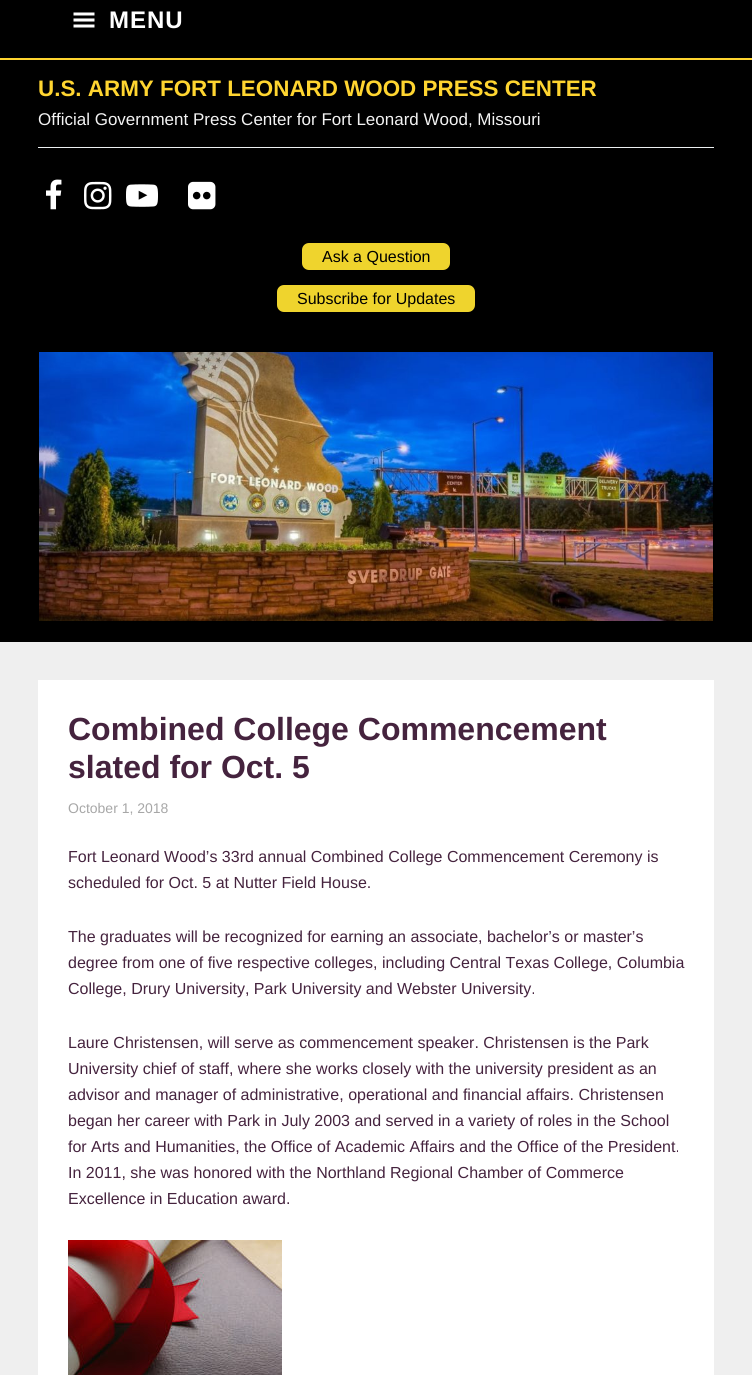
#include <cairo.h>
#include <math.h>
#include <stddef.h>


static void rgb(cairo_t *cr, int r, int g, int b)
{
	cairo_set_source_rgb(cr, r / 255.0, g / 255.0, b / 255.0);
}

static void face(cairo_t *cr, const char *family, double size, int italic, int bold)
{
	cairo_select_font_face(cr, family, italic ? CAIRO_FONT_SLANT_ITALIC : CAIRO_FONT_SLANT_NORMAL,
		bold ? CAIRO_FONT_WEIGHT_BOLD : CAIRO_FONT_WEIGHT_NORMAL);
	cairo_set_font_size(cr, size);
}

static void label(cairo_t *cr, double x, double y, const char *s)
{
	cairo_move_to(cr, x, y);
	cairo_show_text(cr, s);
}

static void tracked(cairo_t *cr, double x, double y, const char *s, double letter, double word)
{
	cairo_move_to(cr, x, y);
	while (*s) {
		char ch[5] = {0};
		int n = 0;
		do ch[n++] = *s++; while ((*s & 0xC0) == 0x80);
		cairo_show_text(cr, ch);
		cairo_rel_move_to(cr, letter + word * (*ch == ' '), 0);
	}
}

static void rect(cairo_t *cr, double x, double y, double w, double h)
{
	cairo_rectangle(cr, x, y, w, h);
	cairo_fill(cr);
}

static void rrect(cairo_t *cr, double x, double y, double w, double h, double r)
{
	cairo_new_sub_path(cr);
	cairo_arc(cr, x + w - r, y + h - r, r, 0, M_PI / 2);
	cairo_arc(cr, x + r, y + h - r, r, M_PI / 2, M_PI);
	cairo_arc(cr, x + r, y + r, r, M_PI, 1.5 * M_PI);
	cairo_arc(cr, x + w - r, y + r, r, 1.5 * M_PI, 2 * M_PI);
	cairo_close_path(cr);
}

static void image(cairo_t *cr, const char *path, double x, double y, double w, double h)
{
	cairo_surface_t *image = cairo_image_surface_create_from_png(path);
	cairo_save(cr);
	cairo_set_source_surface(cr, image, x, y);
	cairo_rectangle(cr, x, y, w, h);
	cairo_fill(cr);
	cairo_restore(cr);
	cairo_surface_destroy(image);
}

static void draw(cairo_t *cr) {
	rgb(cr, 239, 239, 239);
	cairo_paint(cr);
	rgb(cr, 0, 0, 0);
	rect(cr, 0, 0, 752, 58);
	rgb(cr, 255, 213, 48);
	rect(cr, 0, 58, 752, 2);
	image(cr, "image0.png", 73, 12, 22, 16);
	face(cr, "Liberation Sans", 24, 0, 1);
	rgb(cr, 255, 255, 255);
	tracked(cr, 109, 28, "MENU", 1, 0);
	rgb(cr, 0, 0, 0);
	rect(cr, 0, 60, 752, 582);
	face(cr, "Liberation Sans", 22.4, 0, 1);
	rgb(cr, 255, 213, 48);
	label(cr, 38, 96, "U.S. ARMY FORT LEONARD WOOD PRESS CENTER");
	face(cr, "Liberation Sans", 17, 0, 0);
	rgb(cr, 243, 243, 243);
	label(cr, 38, 125, "Official Government Press Center for Fort Leonard Wood, Missouri");
	rgb(cr, 236, 240, 241);
	rect(cr, 38, 147, 676, 1);
	image(cr, "image1.png", 46, 179, 16, 31);
	image(cr, "image2.png", 84, 181, 28, 29);
	image(cr, "image3.png", 126, 184, 32, 23);
	image(cr, "image4.png", 188, 181, 28, 29);
	rgb(cr, 239, 212, 45);
	rrect(cr, 302, 243, 148, 27, 7);
	cairo_fill(cr);
	face(cr, "Liberation Sans", 16, 0, 0);
	rgb(cr, 0, 0, 0);
	label(cr, 322, 262, "Ask a Question");
	rgb(cr, 239, 212, 45);
	rrect(cr, 277, 285, 198, 27, 7);
	cairo_fill(cr);
	rgb(cr, 0, 0, 0);
	label(cr, 297, 304, "Subscribe for Updates");
	image(cr, "image5.png", 39, 352, 674, 269);
	rgb(cr, 255, 255, 255);
	rect(cr, 38, 680, 676, 695);
	face(cr, "Liberation Sans", 32, 0, 1);
	rgb(cr, 69, 35, 62);
	label(cr, 68, 740, "Combined College Commencement");
	label(cr, 68, 778, "slated for Oct. 5");
	face(cr, "Liberation Sans", 14, 0, 0);
	rgb(cr, 167, 167, 167);
	label(cr, 68, 813, "October 1, 2018");
	face(cr, "Liberation Sans", 16, 0, 0);
	rgb(cr, 69, 35, 62);
	label(cr, 68, 862, "Fort Leonard Wood’s 33rd annual Combined College Commencement Ceremony is");
	label(cr, 68, 888, "scheduled for Oct. 5 at Nutter Field House.");
	label(cr, 68, 942, "The graduates will be recognized for earning an associate, bachelor’s or master’s");
	label(cr, 68, 968, "degree from one of five respective colleges, including Central Texas College, Columbia");
	label(cr, 68, 994, "College, Drury University, Park University and Webster University.");
	label(cr, 68, 1048, "Laure Christensen, will serve as commencement speaker. Christensen is the Park");
	label(cr, 68, 1074, "University chief of staff, where she works closely with the university president as an");
	label(cr, 68, 1100, "advisor and manager of administrative, operational and financial affairs. Christensen");
	label(cr, 68, 1126, "began her career with Park in July 2003 and served in a variety of roles in the School");
	label(cr, 68, 1152, "for Arts and Humanities, the Office of Academic Affairs and the Office of the President.");
	label(cr, 68, 1178, "In 2011, she was honored with the Northland Regional Chamber of Commerce");
	label(cr, 68, 1204, "Excellence in Education award.");
	image(cr, "image6.png", 68, 1240, 214, 135);
}

int main(void) {
	cairo_surface_t *surface = cairo_image_surface_create(CAIRO_FORMAT_RGB24, 752, 1375);
	cairo_t *cr = cairo_create(surface);
	cairo_font_options_t *options = cairo_font_options_create();
	cairo_font_options_set_hint_metrics(options, CAIRO_HINT_METRICS_OFF);
	cairo_font_options_set_hint_style(options, CAIRO_HINT_STYLE_NONE);
	cairo_set_font_options(cr, options);
	cairo_set_miter_limit(cr, 4);
	draw(cr);
	cairo_surface_write_to_png(surface, "render.png");
	cairo_font_options_destroy(options);
	cairo_destroy(cr);
	cairo_surface_destroy(surface);
	return 0;
}
